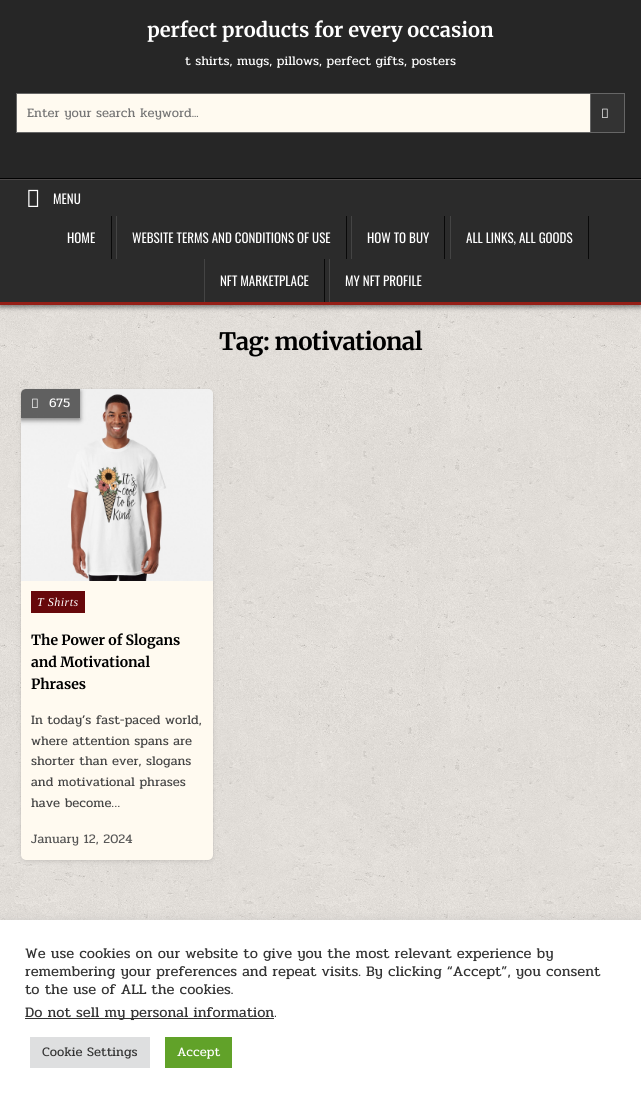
#include <cairo.h>
#include <math.h>
#include <stddef.h>


static void rgb(cairo_t *cr, int r, int g, int b)
{
	cairo_set_source_rgb(cr, r / 255.0, g / 255.0, b / 255.0);
}

static void face(cairo_t *cr, const char *family, double size, int italic, int bold)
{
	cairo_select_font_face(cr, family, italic ? CAIRO_FONT_SLANT_ITALIC : CAIRO_FONT_SLANT_NORMAL,
		bold ? CAIRO_FONT_WEIGHT_BOLD : CAIRO_FONT_WEIGHT_NORMAL);
	cairo_set_font_size(cr, size);
}

static void label(cairo_t *cr, double x, double y, const char *s)
{
	cairo_move_to(cr, x, y);
	cairo_show_text(cr, s);
}

static void tracked(cairo_t *cr, double x, double y, const char *s, double letter, double word)
{
	cairo_move_to(cr, x, y);
	while (*s) {
		char ch[5] = {0};
		int n = 0;
		do ch[n++] = *s++; while ((*s & 0xC0) == 0x80);
		cairo_show_text(cr, ch);
		cairo_rel_move_to(cr, letter + word * (*ch == ' '), 0);
	}
}

static void rect(cairo_t *cr, double x, double y, double w, double h)
{
	cairo_rectangle(cr, x, y, w, h);
	cairo_fill(cr);
}

static void rrect(cairo_t *cr, double x, double y, double w, double h, double r)
{
	cairo_new_sub_path(cr);
	cairo_arc(cr, x + w - r, y + h - r, r, 0, M_PI / 2);
	cairo_arc(cr, x + r, y + h - r, r, M_PI / 2, M_PI);
	cairo_arc(cr, x + r, y + r, r, M_PI, 1.5 * M_PI);
	cairo_arc(cr, x + w - r, y + r, r, 1.5 * M_PI, 2 * M_PI);
	cairo_close_path(cr);
}

static void soft_shadow(cairo_t *cr, double x, double y, double w, double h, double r, double blur, double alpha)
{
	cairo_push_group_with_content(cr, CAIRO_CONTENT_ALPHA);
	cairo_set_operator(cr, CAIRO_OPERATOR_SOURCE);
	for (int i = 15; i >= -15 && fmin(w, h) + blur * i / 3 > 0; i -= 2) {
		double e = blur * i / 6;
		cairo_set_source_rgba(cr, 0, 0, 0, alpha * erfc((i - 1) / 8.5) / 2);
		rrect(cr, x - e, y - e, w + 2 * e, h + 2 * e, fmax(0, fmin(r + e + blur * .6, fmin(w, h) / 2 + e)));
		cairo_fill(cr);
	}
	cairo_pattern_t *soft = cairo_pop_group(cr);
	cairo_mask(cr, soft);
	cairo_pattern_destroy(soft);
}

static void image(cairo_t *cr, const char *path, double x, double y, double w, double h)
{
	cairo_surface_t *image = cairo_image_surface_create_from_png(path);
	cairo_save(cr);
	cairo_set_source_surface(cr, image, x, y);
	cairo_rectangle(cr, x, y, w, h);
	cairo_fill(cr);
	cairo_restore(cr);
	cairo_surface_destroy(image);
}

static void draw(cairo_t *cr) {
	rgb(cr, 255, 255, 255);
	cairo_paint(cr);
	image(cr, "image0.png", 0, 305, 641, 615);
	rgb(cr, 0, 0, 0);
	soft_shadow(cr, 0, 181, 641, 126, 0, 2.5, 0.5);
	rgb(cr, 38, 38, 38);
	rect(cr, 0, 0, 641, 178);
	rgb(cr, 0, 0, 0);
	rect(cr, 0, 178, 641, 1);
	face(cr, "Merriweather", 20, 0, 1);
	rgb(cr, 255, 255, 255);
	label(cr, 147, 37, "perfect products for every occasion");
	face(cr, "Pridi", 13, 0, 0);
	label(cr, 185, 65, "t shirts, mugs, pillows, perfect gifts, posters");
	rgb(cr, 255, 250, 240);
	rect(cr, 17, 94, 573, 38);
	cairo_rectangle(cr, 16.5, 93.5, 608, 39);
	rgb(cr, 102, 102, 102);
	cairo_set_line_width(cr, 1);
	cairo_stroke(cr);
	rgb(cr, 117, 117, 117);
	label(cr, 27, 117, "Enter your search keyword...");
	rgb(cr, 51, 51, 51);
	cairo_rectangle(cr, 590.5, 93.5, 34, 39);
	cairo_fill_preserve(cr);
	rgb(cr, 102, 102, 102);
	cairo_stroke(cr);
	image(cr, "image1.png", 602, 108, 6, 10);
	rgb(cr, 43, 43, 43);
	rect(cr, 0, 180, 641, 122);
	rgb(cr, 76, 73, 73);
	rect(cr, 0, 179, 641, 1);
	rgb(cr, 149, 31, 23);
	rect(cr, 0, 302, 641, 3);
	image(cr, "image2.png", 28, 189, 11, 18);
	face(cr, "Oswald", 13, 0, 0);
	rgb(cr, 255, 255, 255);
	label(cr, 53, 204, "MENU");
	rgb(cr, 9, 9, 9);
	rect(cr, 111, 216, 1, 43);
	rgb(cr, 255, 255, 255);
	label(cr, 67, 243, "HOME");
	rgb(cr, 9, 9, 9);
	rect(cr, 346, 216, 1, 43);
	rgb(cr, 68, 68, 68);
	rect(cr, 116, 216, 1, 43);
	rgb(cr, 255, 255, 255);
	label(cr, 132, 243, "WEBSITE TERMS AND CONDITIONS OF USE");
	rgb(cr, 9, 9, 9);
	rect(cr, 444, 216, 1, 43);
	rgb(cr, 68, 68, 68);
	rect(cr, 351, 216, 1, 43);
	rgb(cr, 255, 255, 255);
	label(cr, 367, 243, "HOW TO BUY");
	rgb(cr, 9, 9, 9);
	rect(cr, 588, 216, 1, 43);
	rgb(cr, 68, 68, 68);
	rect(cr, 450, 216, 1, 43);
	rgb(cr, 255, 255, 255);
	label(cr, 466, 243, "ALL LINKS, ALL GOODS");
	rgb(cr, 9, 9, 9);
	rect(cr, 324, 259, 1, 43);
	rgb(cr, 68, 68, 68);
	rect(cr, 204, 259, 1, 43);
	rgb(cr, 255, 255, 255);
	label(cr, 220, 286, "NFT MARKETPLACE");
	rgb(cr, 68, 68, 68);
	rect(cr, 329, 259, 1, 43);
	rgb(cr, 255, 255, 255);
	label(cr, 345, 286, "MY NFT PROFILE");
	face(cr, "Merriweather", 24, 0, 1);
	rgb(cr, 0, 0, 0);
	tracked(cr, 219, 350, "Tag: motivational", -0.5, 0);
	rgb(cr, 0, 0, 0);
	soft_shadow(cr, 21, 391, 192, 471, 5, 2.5, 0.1);
	soft_shadow(cr, 21, 389, 192, 471, 5, 0.5, 0.1);
	rgb(cr, 255, 250, 240);
	rrect(cr, 21, 389, 192, 471, 5);
	cairo_fill(cr);
	image(cr, "image3.png", 21, 389, 192, 192);
	cairo_save(cr);
	rrect(cr, 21, 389, 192, 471, 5);
	cairo_clip(cr);
	cairo_set_fill_rule(cr, CAIRO_FILL_RULE_EVEN_ODD);
	cairo_new_path(cr);
	cairo_move_to(cr, 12, 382);
	cairo_line_to(cr, 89, 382);
	cairo_line_to(cr, 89, 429);
	cairo_line_to(cr, 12, 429);
	cairo_close_path(cr);
	cairo_move_to(cr, 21, 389);
	cairo_line_to(cr, 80, 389);
	cairo_line_to(cr, 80, 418);
	cairo_line_to(cr, 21, 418);
	cairo_close_path(cr);
	cairo_clip(cr);
	rgb(cr, 0, 0, 0);
	soft_shadow(cr, 21, 391, 59, 29, 0, 2.5, 0.5);
	cairo_restore(cr);
	cairo_set_source_rgba(cr, 0, 0, 0, 0.6);
	cairo_new_path(cr);
	cairo_move_to(cr, 26, 389);
	cairo_line_to(cr, 80, 389);
	cairo_line_to(cr, 80, 418);
	cairo_line_to(cr, 21, 418);
	cairo_line_to(cr, 21, 394);
	cairo_curve_to(cr, 21, 391, 23, 389, 26, 389);
	cairo_close_path(cr);
	cairo_fill(cr);
	image(cr, "image4.png", 32, 398, 6, 10);
	face(cr, "Pridi", 13, 0, 0);
	rgb(cr, 255, 255, 255);
	label(cr, 49, 407, "675");
	rgb(cr, 103, 8, 11);
	rect(cr, 31, 591, 54, 22);
	face(cr, "Liberation Serif", 12, 1, 0);
	rgb(cr, 255, 255, 255);
	tracked(cr, 37, 606, "T Shirts", 0.5, 0);
	face(cr, "Merriweather", 14, 0, 1);
	rgb(cr, 0, 0, 0);
	label(cr, 31, 645, "The Power of Slogans");
	label(cr, 31, 667, "and Motivational");
	label(cr, 31, 689, "Phrases");
	face(cr, "Pridi", 13, 0, 0);
	rgb(cr, 68, 68, 68);
	label(cr, 31, 724, "In today’s fast-paced world,");
	label(cr, 31, 745, "where attention spans are");
	label(cr, 31, 765, "shorter than ever, slogans");
	label(cr, 31, 786, "and motivational phrases");
	label(cr, 31, 807, "have become…");
	rgb(cr, 85, 85, 85);
	label(cr, 31, 843, "January 12, 2024");
	rgb(cr, 172, 171, 171);
	soft_shadow(cr, 0, 919, 641, 178, 0, 5, 0.3);
	rgb(cr, 255, 255, 255);
	rect(cr, 0, 920, 641, 178);
	face(cr, "Pridi", 14.65, 0, 0);
	rgb(cr, 51, 51, 51);
	label(cr, 25, 958, "We use cookies on our website to give you the most relevant experience by");
	label(cr, 25, 976, "remembering your preferences and repeat visits. By clicking “Accept”, you consent");
	label(cr, 25, 994, "to the use of ALL the cookies.");
	rect(cr, 25, 1018, 249, 1);
	label(cr, 25, 1017, "Do not sell my personal information.");
	rgb(cr, 222, 223, 224);
	rect(cr, 30, 1037, 120, 31);
	face(cr, "Pridi", 13, 0, 0);
	rgb(cr, 51, 51, 51);
	label(cr, 42, 1056, "Cookie Settings");
	rgb(cr, 97, 162, 41);
	rect(cr, 165, 1037, 67, 31);
	rgb(cr, 255, 255, 255);
	label(cr, 177, 1056, "Accept");
}

int main(void) {
	cairo_surface_t *surface = cairo_image_surface_create(CAIRO_FORMAT_RGB24, 641, 1098);
	cairo_t *cr = cairo_create(surface);
	cairo_font_options_t *options = cairo_font_options_create();
	cairo_font_options_set_hint_metrics(options, CAIRO_HINT_METRICS_OFF);
	cairo_font_options_set_hint_style(options, CAIRO_HINT_STYLE_NONE);
	cairo_set_font_options(cr, options);
	cairo_set_miter_limit(cr, 4);
	draw(cr);
	cairo_surface_write_to_png(surface, "render.png");
	cairo_font_options_destroy(options);
	cairo_destroy(cr);
	cairo_surface_destroy(surface);
	return 0;
}
